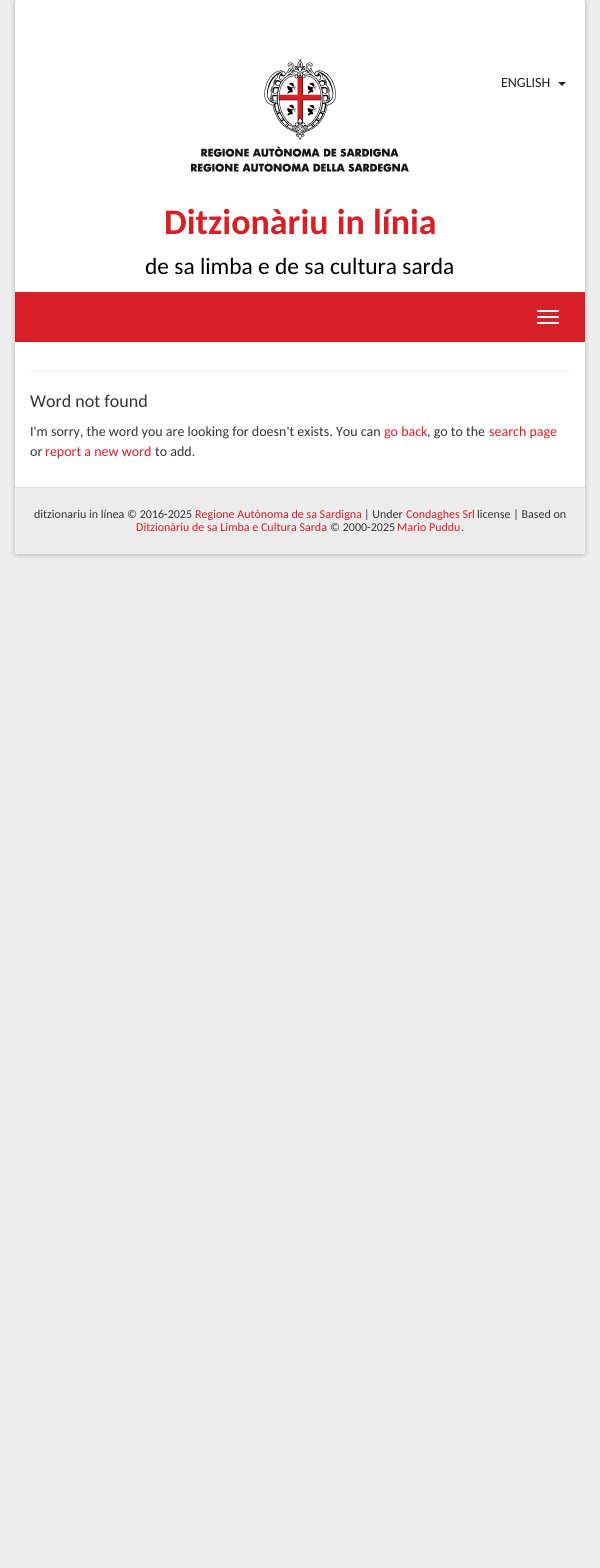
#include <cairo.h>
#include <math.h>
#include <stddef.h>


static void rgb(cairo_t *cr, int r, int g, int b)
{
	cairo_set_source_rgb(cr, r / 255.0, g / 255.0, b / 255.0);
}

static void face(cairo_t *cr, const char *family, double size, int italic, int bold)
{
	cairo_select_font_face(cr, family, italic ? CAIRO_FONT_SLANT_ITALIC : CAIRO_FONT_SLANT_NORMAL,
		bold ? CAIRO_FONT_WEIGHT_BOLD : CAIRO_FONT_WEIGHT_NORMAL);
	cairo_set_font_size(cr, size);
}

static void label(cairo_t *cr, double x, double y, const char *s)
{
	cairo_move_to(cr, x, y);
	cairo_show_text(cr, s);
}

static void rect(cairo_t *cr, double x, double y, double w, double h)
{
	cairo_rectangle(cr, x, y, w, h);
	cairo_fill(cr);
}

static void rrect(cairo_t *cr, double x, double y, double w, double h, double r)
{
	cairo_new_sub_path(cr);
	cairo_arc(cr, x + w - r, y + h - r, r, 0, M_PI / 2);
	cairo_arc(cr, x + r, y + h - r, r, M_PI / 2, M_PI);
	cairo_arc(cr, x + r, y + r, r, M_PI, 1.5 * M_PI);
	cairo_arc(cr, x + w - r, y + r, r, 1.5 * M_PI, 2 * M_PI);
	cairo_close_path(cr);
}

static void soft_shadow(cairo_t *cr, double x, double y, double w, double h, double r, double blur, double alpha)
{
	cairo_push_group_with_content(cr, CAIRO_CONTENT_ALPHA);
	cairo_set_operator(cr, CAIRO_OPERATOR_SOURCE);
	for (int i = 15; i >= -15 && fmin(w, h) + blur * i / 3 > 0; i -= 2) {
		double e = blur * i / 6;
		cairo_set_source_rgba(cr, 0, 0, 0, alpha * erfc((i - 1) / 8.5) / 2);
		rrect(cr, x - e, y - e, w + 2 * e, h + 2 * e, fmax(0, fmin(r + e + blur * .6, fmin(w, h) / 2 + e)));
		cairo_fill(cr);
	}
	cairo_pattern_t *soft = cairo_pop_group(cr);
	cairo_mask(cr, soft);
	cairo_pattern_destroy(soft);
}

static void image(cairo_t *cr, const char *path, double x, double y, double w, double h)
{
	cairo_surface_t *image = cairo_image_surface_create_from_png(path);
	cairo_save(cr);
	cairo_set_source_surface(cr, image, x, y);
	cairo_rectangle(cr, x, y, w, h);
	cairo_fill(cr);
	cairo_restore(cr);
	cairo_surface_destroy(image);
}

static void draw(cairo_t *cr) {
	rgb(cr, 238, 238, 238);
	cairo_paint(cr);
	rgb(cr, 0, 0, 0);
	soft_shadow(cr, 15, 1, 570, 554, 2, 3, 0.12);
	soft_shadow(cr, 15, 1, 570, 554, 2, 3, 0.12);
	rgb(cr, 255, 255, 255);
	rrect(cr, 15, 0, 570, 554, 2);
	cairo_fill(cr);
	rgb(cr, 238, 238, 238);
	rect(cr, 30, 371, 540, 1);
	face(cr, "Carlito", 14, 0, 0);
	rgb(cr, 33, 33, 33);
	label(cr, 501, 87, "ENGLISH");
	cairo_new_path(cr);
	cairo_move_to(cr, 558, 82);
	cairo_line_to(cr, 566, 82);
	cairo_line_to(cr, 562, 86);
	cairo_close_path(cr);
	cairo_fill(cr);
	image(cr, "image0.png", 191, 59, 218, 113);
	face(cr, "Carlito", 36, 0, 1);
	rgb(cr, 214, 31, 39);
	label(cr, 164, 234, "Ditzionàriu in línia");
	face(cr, "Carlito", 23.4, 0, 0);
	rgb(cr, 0, 0, 0);
	label(cr, 145, 274, "de sa limba e de sa cultura sarda");
	rgb(cr, 214, 31, 39);
	rect(cr, 15, 292, 570, 50);
	rgb(cr, 255, 255, 255);
	rrect(cr, 537, 310, 22, 2, 1);
	cairo_fill(cr);
	rrect(cr, 537, 316, 22, 2, 1);
	cairo_fill(cr);
	rrect(cr, 537, 322, 22, 2, 1);
	cairo_fill(cr);
	face(cr, "Carlito", 18, 0, 0);
	rgb(cr, 51, 51, 51);
	label(cr, 30, 407, "Word not found");
	face(cr, "Carlito", 14, 0, 0);
	label(cr, 30, 436, "I'm sorry, the word you are looking for doesn't exists. You can");
	rgb(cr, 214, 31, 39);
	label(cr, 384, 436, "go back");
	rgb(cr, 51, 51, 51);
	label(cr, 427, 436, ", go to the");
	rgb(cr, 214, 31, 39);
	label(cr, 489, 436, "search page");
	rgb(cr, 51, 51, 51);
	label(cr, 30, 456, "or");
	rgb(cr, 214, 31, 39);
	label(cr, 45, 456, "report a new word");
	rgb(cr, 51, 51, 51);
	label(cr, 155, 456, "to add.");
	rgb(cr, 236, 236, 236);
	cairo_new_path(cr);
	cairo_move_to(cr, 15, 487);
	cairo_line_to(cr, 585, 487);
	cairo_line_to(cr, 585, 551);
	cairo_curve_to(cr, 585, 552.5, 583.5, 554, 582, 554);
	cairo_line_to(cr, 18, 554);
	cairo_curve_to(cr, 16.5, 554, 15, 552.5, 15, 551);
	cairo_close_path(cr);
	cairo_fill(cr);
	rgb(cr, 221, 221, 221);
	rect(cr, 15, 487, 570, 1);
	face(cr, "Carlito", 12, 0, 0);
	rgb(cr, 51, 51, 51);
	label(cr, 34, 518, "ditzionariu in línea © 2016-2025");
	rgb(cr, 214, 31, 39);
	label(cr, 195, 518, "Regione Autònoma de sa Sardigna");
	rgb(cr, 51, 51, 51);
	label(cr, 364, 518, "| Under");
	rgb(cr, 214, 31, 39);
	label(cr, 406, 518, "Condaghes Srl");
	rgb(cr, 51, 51, 51);
	label(cr, 477, 518, "license | Based on");
	rgb(cr, 214, 31, 39);
	label(cr, 136, 531, "Ditzionàriu de sa Limba e Cultura Sarda");
	rgb(cr, 51, 51, 51);
	label(cr, 330, 531, "© 2000-2025");
	rgb(cr, 214, 31, 39);
	label(cr, 397, 531, "Mario Puddu");
	rgb(cr, 51, 51, 51);
	label(cr, 461, 531, ".");
}

int main(void) {
	cairo_surface_t *surface = cairo_image_surface_create(CAIRO_FORMAT_RGB24, 600, 1568);
	cairo_t *cr = cairo_create(surface);
	cairo_font_options_t *options = cairo_font_options_create();
	cairo_font_options_set_hint_metrics(options, CAIRO_HINT_METRICS_OFF);
	cairo_font_options_set_hint_style(options, CAIRO_HINT_STYLE_NONE);
	cairo_set_font_options(cr, options);
	cairo_set_miter_limit(cr, 4);
	draw(cr);
	cairo_surface_write_to_png(surface, "render.png");
	cairo_font_options_destroy(options);
	cairo_destroy(cr);
	cairo_surface_destroy(surface);
	return 0;
}
